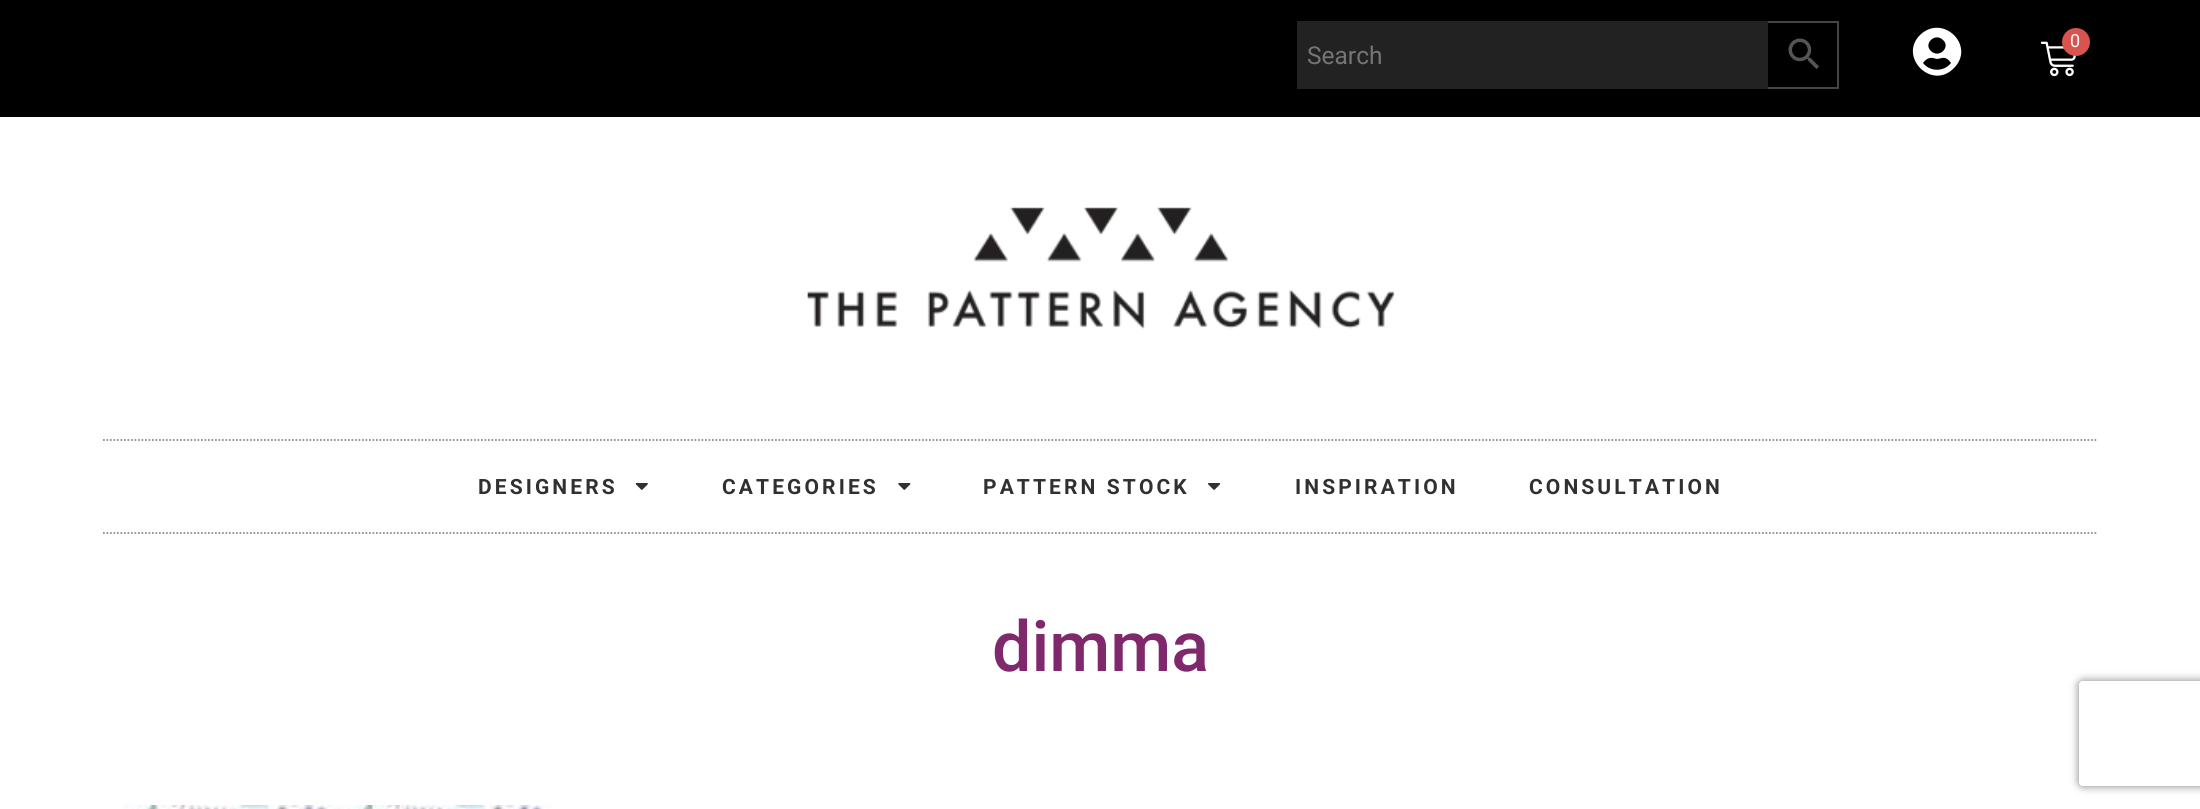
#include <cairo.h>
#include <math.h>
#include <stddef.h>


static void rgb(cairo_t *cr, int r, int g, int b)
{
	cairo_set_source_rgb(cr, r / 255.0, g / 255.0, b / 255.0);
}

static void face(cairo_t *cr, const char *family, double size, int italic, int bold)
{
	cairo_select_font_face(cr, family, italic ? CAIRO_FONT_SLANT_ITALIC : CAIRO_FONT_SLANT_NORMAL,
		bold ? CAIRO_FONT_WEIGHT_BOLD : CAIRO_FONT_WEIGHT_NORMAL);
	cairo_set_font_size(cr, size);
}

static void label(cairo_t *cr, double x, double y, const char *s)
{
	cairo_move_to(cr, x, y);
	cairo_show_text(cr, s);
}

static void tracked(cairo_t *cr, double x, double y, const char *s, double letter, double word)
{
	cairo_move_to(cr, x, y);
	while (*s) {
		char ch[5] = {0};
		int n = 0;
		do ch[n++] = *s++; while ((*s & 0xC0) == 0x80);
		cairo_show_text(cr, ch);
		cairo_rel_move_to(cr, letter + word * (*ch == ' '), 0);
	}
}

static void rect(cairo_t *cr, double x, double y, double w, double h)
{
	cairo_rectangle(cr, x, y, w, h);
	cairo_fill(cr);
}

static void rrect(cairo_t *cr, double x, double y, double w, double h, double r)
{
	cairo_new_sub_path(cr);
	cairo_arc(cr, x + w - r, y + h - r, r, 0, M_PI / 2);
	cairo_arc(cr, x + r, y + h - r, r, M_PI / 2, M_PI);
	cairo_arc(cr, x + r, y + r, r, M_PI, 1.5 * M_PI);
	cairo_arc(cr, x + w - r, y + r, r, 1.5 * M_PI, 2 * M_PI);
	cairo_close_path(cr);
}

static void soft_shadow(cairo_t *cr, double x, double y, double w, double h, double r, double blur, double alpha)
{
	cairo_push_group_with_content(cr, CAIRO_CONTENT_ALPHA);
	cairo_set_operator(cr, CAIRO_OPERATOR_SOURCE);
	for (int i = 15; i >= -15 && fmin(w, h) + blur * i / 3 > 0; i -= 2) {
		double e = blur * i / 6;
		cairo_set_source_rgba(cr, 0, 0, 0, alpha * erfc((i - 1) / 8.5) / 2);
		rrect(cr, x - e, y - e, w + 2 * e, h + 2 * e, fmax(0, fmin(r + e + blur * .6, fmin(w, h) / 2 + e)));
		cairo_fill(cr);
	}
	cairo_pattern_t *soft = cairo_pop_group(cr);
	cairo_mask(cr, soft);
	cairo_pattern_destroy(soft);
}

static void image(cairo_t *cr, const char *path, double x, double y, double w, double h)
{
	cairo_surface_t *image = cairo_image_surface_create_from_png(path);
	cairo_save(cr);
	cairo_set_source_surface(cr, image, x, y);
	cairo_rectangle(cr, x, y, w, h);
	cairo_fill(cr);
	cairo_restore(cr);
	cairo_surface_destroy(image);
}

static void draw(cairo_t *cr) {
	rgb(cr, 255, 255, 255);
	cairo_paint(cr);
	rgb(cr, 0, 0, 0);
	rect(cr, 0, 0, 2200, 117);
	rgb(cr, 255, 255, 255);
	cairo_new_path(cr);
	cairo_move_to(cr, 1920, 35);
	cairo_curve_to(cr, 1943, 13, 1976, 46, 1954, 68);
	cairo_curve_to(cr, 1932, 91, 1898, 57, 1920, 35);
	cairo_close_path(cr);
	cairo_move_to(cr, 1943, 40);
	cairo_curve_to(cr, 1935, 32, 1923, 44, 1931, 51);
	cairo_curve_to(cr, 1939, 59, 1951, 47, 1943, 40);
	cairo_close_path(cr);
	cairo_move_to(cr, 1923, 63);
	cairo_curve_to(cr, 1930, 72, 1944, 72, 1951, 63);
	cairo_curve_to(cr, 1949, 60, 1946, 57, 1942, 58);
	cairo_line_to(cr, 1937, 59);
	cairo_line_to(cr, 1933, 58);
	cairo_curve_to(cr, 1929, 57, 1925, 60, 1923, 63);
	cairo_close_path(cr);
	cairo_fill(cr);
	image(cr, "image0.png", 2040, 41, 36, 36);
	rgb(cr, 217, 83, 79);
	cairo_arc(cr, 2076, 42, 14, 0, 2 * M_PI);
	cairo_fill(cr);
	face(cr, "Roboto", 18, 0, 0);
	rgb(cr, 255, 255, 255);
	label(cr, 2070, 47, "0");
	cairo_rectangle(cr, 1767, 22, 71, 66);
	rgb(cr, 69, 69, 69);
	cairo_stroke(cr);
	rgb(cr, 34, 34, 34);
	rect(cr, 1297, 21, 471, 68);
	face(cr, "Roboto", 24.5, 0, 0);
	rgb(cr, 117, 117, 117);
	label(cr, 1307, 64, "Search");
	image(cr, "image1.png", 1788, 38, 31, 31);
	image(cr, "image2.png", 807, 207, 588, 122);
	cairo_new_path(cr);
	cairo_move_to(cr, 103, 440);
	cairo_line_to(cr, 2098, 440);
	rgb(cr, 142, 142, 142);
	cairo_set_line_width(cr, 1.8);
	cairo_set_dash(cr, (double[]){1.75, 1.75}, 2, 0);
	cairo_stroke(cr);
	cairo_new_path(cr);
	cairo_move_to(cr, 103, 533);
	cairo_line_to(cr, 2098, 533);
	cairo_stroke(cr);
	face(cr, "Roboto", 21, 0, 1);
	rgb(cr, 48, 48, 48);
	tracked(cr, 478, 494, "DESIGNERS", 3.1, 0);
	image(cr, "image3.png", 635, 483, 13, 7);
	tracked(cr, 722, 494, "CATEGORIES", 3.1, 0);
	image(cr, "image4.png", 898, 483, 13, 7);
	tracked(cr, 983, 494, "PATTERN STOCK", 3.1, 0);
	image(cr, "image5.png", 1208, 483, 13, 7);
	tracked(cr, 1295, 494, "INSPIRATION", 3.1, 0);
	tracked(cr, 1529, 494, "CONSULTATION", 3.1, 0);
	face(cr, "Roboto Medium", 70, 0, 0);
	rgb(cr, 128, 40, 108);
	label(cr, 992, 671, "dimma");
	image(cr, "image6.png", 123, 805, 428, 4);
	cairo_save(cr);
	cairo_set_fill_rule(cr, CAIRO_FILL_RULE_EVEN_ODD);
	cairo_new_path(cr);
	cairo_move_to(cr, 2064, 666);
	cairo_line_to(cr, 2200, 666);
	cairo_line_to(cr, 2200, 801);
	cairo_line_to(cr, 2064, 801);
	cairo_close_path(cr);
	cairo_move_to(cr, 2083, 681);
	cairo_line_to(cr, 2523, 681);
	cairo_curve_to(cr, 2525, 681, 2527, 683, 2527, 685);
	cairo_line_to(cr, 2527, 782);
	cairo_curve_to(cr, 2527, 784, 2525, 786, 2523, 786);
	cairo_line_to(cr, 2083, 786);
	cairo_curve_to(cr, 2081, 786, 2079, 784, 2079, 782);
	cairo_line_to(cr, 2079, 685);
	cairo_curve_to(cr, 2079, 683, 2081, 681, 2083, 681);
	cairo_close_path(cr);
	cairo_clip(cr);
	rgb(cr, 128, 128, 128);
	soft_shadow(cr, 2079, 681, 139, 105, 4, 4.5, 1);
	cairo_restore(cr);
}

int main(void) {
	cairo_surface_t *surface = cairo_image_surface_create(CAIRO_FORMAT_RGB24, 2200, 809);
	cairo_t *cr = cairo_create(surface);
	cairo_font_options_t *options = cairo_font_options_create();
	cairo_font_options_set_hint_metrics(options, CAIRO_HINT_METRICS_OFF);
	cairo_font_options_set_hint_style(options, CAIRO_HINT_STYLE_NONE);
	cairo_set_font_options(cr, options);
	cairo_set_miter_limit(cr, 4);
	draw(cr);
	cairo_surface_write_to_png(surface, "render.png");
	cairo_font_options_destroy(options);
	cairo_destroy(cr);
	cairo_surface_destroy(surface);
	return 0;
}
